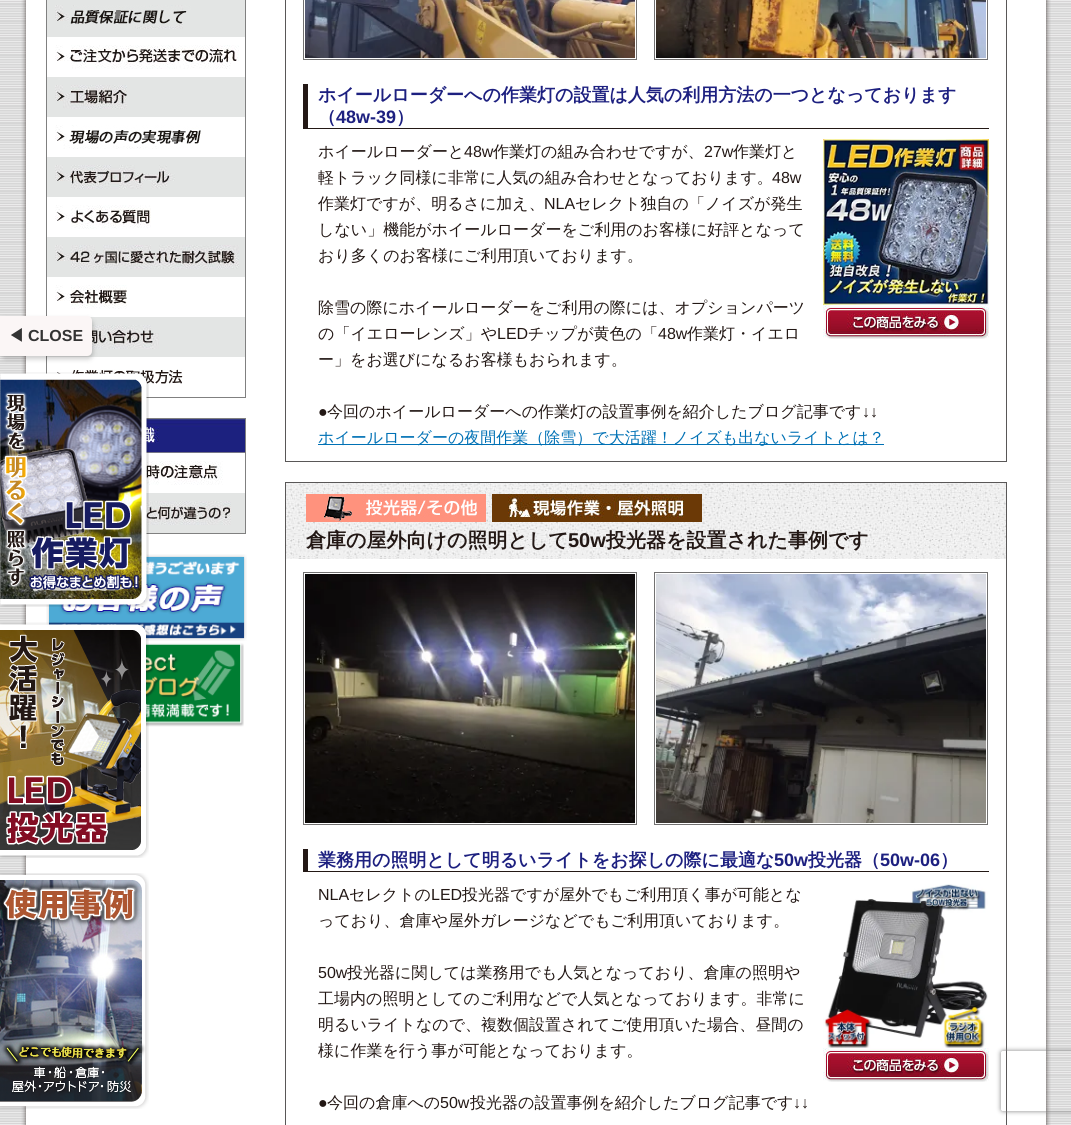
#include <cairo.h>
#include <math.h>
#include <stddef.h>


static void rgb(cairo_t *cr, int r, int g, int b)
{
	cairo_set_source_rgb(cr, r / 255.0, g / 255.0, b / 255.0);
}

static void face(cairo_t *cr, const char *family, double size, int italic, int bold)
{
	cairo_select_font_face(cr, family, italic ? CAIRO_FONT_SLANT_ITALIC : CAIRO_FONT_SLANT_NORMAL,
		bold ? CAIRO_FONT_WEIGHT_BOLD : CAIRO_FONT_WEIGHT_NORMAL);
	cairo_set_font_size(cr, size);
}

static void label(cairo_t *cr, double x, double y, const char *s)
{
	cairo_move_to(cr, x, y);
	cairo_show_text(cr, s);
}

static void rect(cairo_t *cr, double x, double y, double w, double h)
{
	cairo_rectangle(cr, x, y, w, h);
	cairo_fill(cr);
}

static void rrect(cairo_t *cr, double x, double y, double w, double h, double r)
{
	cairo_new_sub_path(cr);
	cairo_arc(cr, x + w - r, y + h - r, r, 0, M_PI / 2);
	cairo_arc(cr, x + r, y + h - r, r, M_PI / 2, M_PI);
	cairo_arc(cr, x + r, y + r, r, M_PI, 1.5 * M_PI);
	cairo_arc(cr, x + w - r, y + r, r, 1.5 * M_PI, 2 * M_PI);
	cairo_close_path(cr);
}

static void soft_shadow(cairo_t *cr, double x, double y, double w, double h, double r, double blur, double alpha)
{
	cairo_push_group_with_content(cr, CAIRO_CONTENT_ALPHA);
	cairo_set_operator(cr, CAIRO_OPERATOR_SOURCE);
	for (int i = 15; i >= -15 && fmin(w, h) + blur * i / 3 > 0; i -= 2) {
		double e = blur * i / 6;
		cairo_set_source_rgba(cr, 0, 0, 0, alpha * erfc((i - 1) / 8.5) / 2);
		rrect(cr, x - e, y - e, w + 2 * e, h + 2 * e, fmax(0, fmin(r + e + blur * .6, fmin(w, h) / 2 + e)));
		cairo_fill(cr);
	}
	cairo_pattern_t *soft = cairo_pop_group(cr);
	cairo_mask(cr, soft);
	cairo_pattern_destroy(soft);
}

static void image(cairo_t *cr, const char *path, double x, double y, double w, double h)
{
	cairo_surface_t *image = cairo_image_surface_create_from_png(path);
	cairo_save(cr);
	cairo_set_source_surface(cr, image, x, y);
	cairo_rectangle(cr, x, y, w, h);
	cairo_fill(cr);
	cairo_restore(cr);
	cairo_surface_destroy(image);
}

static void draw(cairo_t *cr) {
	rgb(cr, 255, 255, 255);
	cairo_paint(cr);
	image(cr, "image0.png", 0, 0, 1071, 1125);
	image(cr, "image4.png", 21, 0, 1030, 1125);
	cairo_rectangle(cr, 46.5, -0.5, 199, 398);
	rgb(cr, 128, 128, 128);
	cairo_set_line_width(cr, 1);
	cairo_stroke(cr);
	image(cr, "image13.png", 47, 317, 198, 40);
	rgb(cr, 0, 0, 0);
	soft_shadow(cr, 1, 319, 92, 40, 5, 2.5, 0.2);
	rgb(cr, 251, 246, 246);
	cairo_new_path(cr);
	cairo_move_to(cr, 0, 316);
	cairo_line_to(cr, 87, 316);
	cairo_curve_to(cr, 90, 316, 92, 318, 92, 321);
	cairo_line_to(cr, 92, 351);
	cairo_curve_to(cr, 92, 354, 90, 356, 87, 356);
	cairo_line_to(cr, 0, 356);
	cairo_close_path(cr);
	cairo_fill(cr);
	face(cr, "WenQuanYi Zen Hei", 16, 0, 1);
	rgb(cr, 51, 51, 51);
	label(cr, 8, 341, "◀");
	face(cr, "Liberation Sans", 16, 0, 1);
	label(cr, 28, 341, "CLOSE");
	image(cr, "image14.png", 57, 369, 126, 15);
	cairo_rectangle(cr, 46.5, 418.5, 199, 115);
	rgb(cr, 128, 128, 128);
	cairo_stroke(cr);
	image(cr, "image15.png", 146, 419, 99, 34);
	image(cr, "image16.png", 146, 461, 77, 24);
	image(cr, "image17.png", 146, 493, 99, 40);
	image(cr, "image18.png", 46, 554, 201, 87);
	image(cr, "image1.png", 0, 372, 149, 235);
	image(cr, "image19.png", 146, 643, 98, 84);
	image(cr, "image2.png", 0, 622, 149, 236);
	image(cr, "image3.png", 0, 873, 149, 236);
	image(cr, "image5.png", 47, 0, 198, 37);
	image(cr, "image6.png", 55, 45, 184, 24);
	image(cr, "image7.png", 47, 77, 198, 40);
	image(cr, "image8.png", 55, 125, 146, 24);
	image(cr, "image9.png", 47, 157, 198, 40);
	image(cr, "image10.png", 55, 205, 96, 24);
	image(cr, "image11.png", 47, 237, 198, 40);
	image(cr, "image12.png", 55, 285, 72, 24);
	cairo_rectangle(cr, 285.5, -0.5, 721, 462);
	rgb(cr, 89, 87, 87);
	cairo_stroke(cr);
	cairo_rectangle(cr, 303.5, -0.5, 333, 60);
	rgb(cr, 114, 113, 113);
	cairo_stroke(cr);
	image(cr, "image20.png", 305, 0, 330, 58);
	cairo_rectangle(cr, 654.5, -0.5, 333, 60);
	cairo_stroke(cr);
	image(cr, "image21.png", 656, 0, 330, 58);
	rgb(cr, 35, 24, 21);
	rect(cr, 303, 128, 686, 1);
	rect(cr, 303, 84, 5, 45);
	face(cr, "WenQuanYi Zen Hei", 18, 0, 1);
	rgb(cr, 29, 32, 128);
	label(cr, 318, 101, "ホイールローダーへの作業灯の設置は人気の利用方法の一つとなっております");
	label(cr, 318, 123, "（");
	face(cr, "Liberation Sans", 18, 0, 1);
	label(cr, 336, 123, "48w-39");
	face(cr, "WenQuanYi Zen Hei", 18, 0, 1);
	label(cr, 396, 123, "）");
	face(cr, "WenQuanYi Zen Hei Medium", 16, 0, 0);
	rgb(cr, 35, 24, 21);
	label(cr, 318, 157, "ホイールローダーと");
	face(cr, "Liberation Sans", 16, 0, 0);
	label(cr, 464, 157, "48w");
	face(cr, "WenQuanYi Zen Hei Medium", 16, 0, 0);
	label(cr, 493, 157, "作業灯の組み合わせですが、");
	face(cr, "Liberation Sans", 16, 0, 0);
	label(cr, 704, 157, "27w");
	face(cr, "WenQuanYi Zen Hei Medium", 16, 0, 0);
	label(cr, 733, 157, "作業灯と");
	label(cr, 318, 183, "軽トラック同様に非常に人気の組み合わせとなっております。");
	face(cr, "Liberation Sans", 16, 0, 0);
	label(cr, 772, 183, "48w");
	face(cr, "WenQuanYi Zen Hei Medium", 16, 0, 0);
	label(cr, 318, 209, "作業灯ですが、明るさに加え、");
	face(cr, "Liberation Sans", 16, 0, 0);
	label(cr, 544, 209, "NLA");
	face(cr, "WenQuanYi Zen Hei Medium", 16, 0, 0);
	label(cr, 575, 209, "セレクト独自の「ノイズが発生");
	label(cr, 318, 235, "しない」機能がホイールローダーをご利用のお客様に好評となって");
	label(cr, 318, 261, "おり多くのお客様にご利用頂いております。");
	label(cr, 318, 313, "除雪の際にホイールローダーをご利用の際には、オプションパーツ");
	label(cr, 318, 339, "の「イエローレンズ」や");
	face(cr, "Liberation Sans", 16, 0, 0);
	label(cr, 497, 339, "LED");
	face(cr, "WenQuanYi Zen Hei Medium", 16, 0, 0);
	label(cr, 528, 339, "チップが黄色の「");
	face(cr, "Liberation Sans", 16, 0, 0);
	label(cr, 658, 339, "48w");
	face(cr, "WenQuanYi Zen Hei Medium", 16, 0, 0);
	label(cr, 687, 339, "作業灯・イエロ");
	label(cr, 318, 365, "ー」をお選びになるお客様もおられます。");
	face(cr, "Liberation Sans", 16, 0, 0);
	label(cr, 318, 417, "●");
	face(cr, "WenQuanYi Zen Hei Medium", 16, 0, 0);
	label(cr, 327, 417, "今回のホイールローダーへの作業灯の設置事例を紹介したブログ記事です");
	face(cr, "Liberation Sans", 16, 0, 0);
	label(cr, 862, 417, "↓↓");
	rgb(cr, 0, 113, 181);
	rect(cr, 318, 444, 566, 1);
	face(cr, "WenQuanYi Zen Hei Medium", 16, 0, 0);
	label(cr, 318, 443, "ホイールローダーの夜間作業（除雪）で大活躍！ノイズも出ないライトとは？");
	image(cr, "image22.png", 823, 139, 166, 166);
	image(cr, "image23.png", 823, 305, 166, 34);
	cairo_rectangle(cr, 285.5, 482.5, 721, 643);
	rgb(cr, 89, 87, 87);
	cairo_stroke(cr);
	image(cr, "image24.png", 286, 483, 720, 76);
	image(cr, "image25.png", 306, 494, 180, 28);
	image(cr, "image26.png", 492, 494, 210, 28);
	face(cr, "WenQuanYi Zen Hei", 20, 0, 1);
	rgb(cr, 35, 24, 21);
	label(cr, 306, 547, "倉庫の屋外向けの照明として");
	face(cr, "Liberation Sans", 20, 0, 1);
	label(cr, 568, 547, "50w");
	face(cr, "WenQuanYi Zen Hei", 20, 0, 1);
	label(cr, 606, 547, "投光器を設置された事例です");
	cairo_rectangle(cr, 303.5, 572.5, 333, 252);
	rgb(cr, 114, 113, 113);
	cairo_stroke(cr);
	image(cr, "image27.png", 305, 574, 330, 249);
	cairo_rectangle(cr, 654.5, 572.5, 333, 252);
	cairo_stroke(cr);
	image(cr, "image28.png", 656, 574, 330, 249);
	rgb(cr, 35, 24, 21);
	rect(cr, 303, 871, 686, 1);
	rect(cr, 303, 849, 5, 23);
	face(cr, "WenQuanYi Zen Hei", 18, 0, 1);
	rgb(cr, 29, 32, 128);
	label(cr, 318, 866, "業務用の照明として明るいライトをお探しの際に最適な");
	face(cr, "Liberation Sans", 18, 0, 1);
	label(cr, 774, 866, "50w");
	face(cr, "WenQuanYi Zen Hei", 18, 0, 1);
	label(cr, 808, 866, "投光器（");
	face(cr, "Liberation Sans", 18, 0, 1);
	label(cr, 880, 866, "50w-06");
	face(cr, "WenQuanYi Zen Hei", 18, 0, 1);
	label(cr, 940, 866, "）");
	face(cr, "Liberation Sans", 16, 0, 0);
	rgb(cr, 35, 24, 21);
	label(cr, 318, 900, "NLA");
	face(cr, "WenQuanYi Zen Hei Medium", 16, 0, 0);
	label(cr, 349, 900, "セレクトの");
	face(cr, "Liberation Sans", 16, 0, 0);
	label(cr, 431, 900, "LED");
	face(cr, "WenQuanYi Zen Hei Medium", 16, 0, 0);
	label(cr, 462, 900, "投光器ですが屋外でもご利用頂く事が可能とな");
	label(cr, 318, 926, "っており、倉庫や屋外ガレージなどでもご利用頂いております。");
	face(cr, "Liberation Sans", 16, 0, 0);
	label(cr, 318, 978, "50w");
	face(cr, "WenQuanYi Zen Hei Medium", 16, 0, 0);
	label(cr, 347, 978, "投光器に関しては業務用でも人気となっており、倉庫の照明や");
	label(cr, 318, 1004, "工場内の照明としてのご利用などで人気となっております。非常に");
	label(cr, 318, 1030, "明るいライトなので、複数個設置されてご使用頂いた場合、昼間の");
	label(cr, 318, 1056, "様に作業を行う事が可能となっております。");
	face(cr, "Liberation Sans", 16, 0, 0);
	label(cr, 318, 1108, "●");
	face(cr, "WenQuanYi Zen Hei Medium", 16, 0, 0);
	label(cr, 327, 1108, "今回の倉庫への");
	face(cr, "Liberation Sans", 16, 0, 0);
	label(cr, 440, 1108, "50w");
	face(cr, "WenQuanYi Zen Hei Medium", 16, 0, 0);
	label(cr, 470, 1108, "投光器の設置事例を紹介したブログ記事です");
	face(cr, "Liberation Sans", 16, 0, 0);
	label(cr, 793, 1108, "↓↓");
	image(cr, "image29.png", 823, 884, 165, 164);
	image(cr, "image23.png", 823, 1048, 166, 34);
	cairo_save(cr);
	cairo_set_fill_rule(cr, CAIRO_FILL_RULE_EVEN_ODD);
	cairo_new_path(cr);
	cairo_move_to(cr, 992, 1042);
	cairo_line_to(cr, 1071, 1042);
	cairo_line_to(cr, 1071, 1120);
	cairo_line_to(cr, 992, 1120);
	cairo_close_path(cr);
	cairo_move_to(cr, 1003, 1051);
	cairo_line_to(cr, 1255, 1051);
	cairo_curve_to(cr, 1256, 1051, 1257, 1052, 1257, 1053);
	cairo_line_to(cr, 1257, 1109);
	cairo_curve_to(cr, 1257, 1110, 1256, 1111, 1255, 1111);
	cairo_line_to(cr, 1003, 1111);
	cairo_curve_to(cr, 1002, 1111, 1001, 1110, 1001, 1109);
	cairo_line_to(cr, 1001, 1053);
	cairo_curve_to(cr, 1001, 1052, 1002, 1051, 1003, 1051);
	cairo_close_path(cr);
	cairo_clip(cr);
	rgb(cr, 128, 128, 128);
	soft_shadow(cr, 1001, 1051, 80, 60, 2, 2.5, 1);
	cairo_restore(cr);
}

int main(void) {
	cairo_surface_t *surface = cairo_image_surface_create(CAIRO_FORMAT_RGB24, 1071, 1125);
	cairo_t *cr = cairo_create(surface);
	cairo_font_options_t *options = cairo_font_options_create();
	cairo_font_options_set_hint_metrics(options, CAIRO_HINT_METRICS_OFF);
	cairo_font_options_set_hint_style(options, CAIRO_HINT_STYLE_NONE);
	cairo_set_font_options(cr, options);
	cairo_set_miter_limit(cr, 4);
	draw(cr);
	cairo_surface_write_to_png(surface, "render.png");
	cairo_font_options_destroy(options);
	cairo_destroy(cr);
	cairo_surface_destroy(surface);
	return 0;
}
